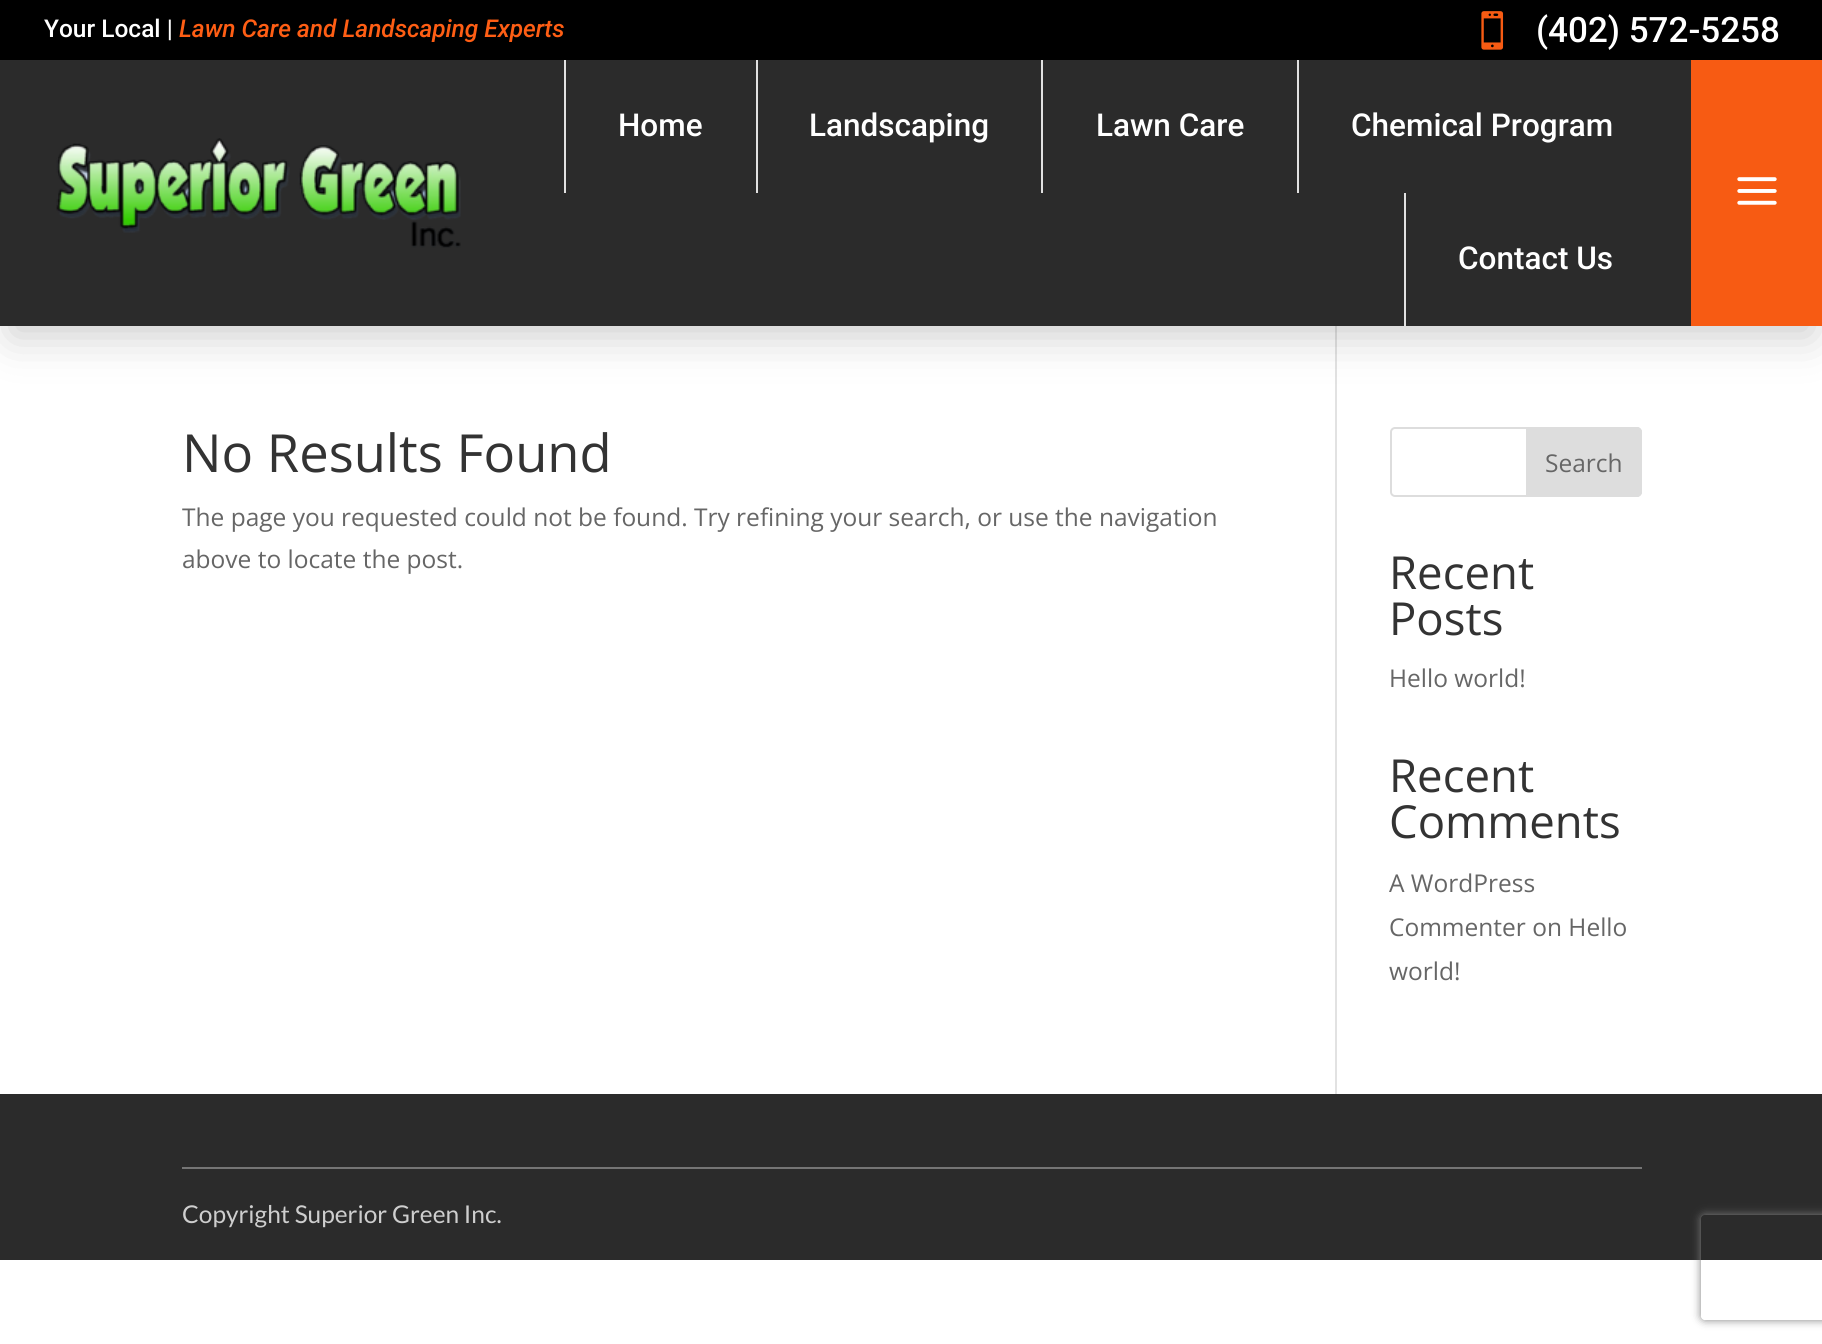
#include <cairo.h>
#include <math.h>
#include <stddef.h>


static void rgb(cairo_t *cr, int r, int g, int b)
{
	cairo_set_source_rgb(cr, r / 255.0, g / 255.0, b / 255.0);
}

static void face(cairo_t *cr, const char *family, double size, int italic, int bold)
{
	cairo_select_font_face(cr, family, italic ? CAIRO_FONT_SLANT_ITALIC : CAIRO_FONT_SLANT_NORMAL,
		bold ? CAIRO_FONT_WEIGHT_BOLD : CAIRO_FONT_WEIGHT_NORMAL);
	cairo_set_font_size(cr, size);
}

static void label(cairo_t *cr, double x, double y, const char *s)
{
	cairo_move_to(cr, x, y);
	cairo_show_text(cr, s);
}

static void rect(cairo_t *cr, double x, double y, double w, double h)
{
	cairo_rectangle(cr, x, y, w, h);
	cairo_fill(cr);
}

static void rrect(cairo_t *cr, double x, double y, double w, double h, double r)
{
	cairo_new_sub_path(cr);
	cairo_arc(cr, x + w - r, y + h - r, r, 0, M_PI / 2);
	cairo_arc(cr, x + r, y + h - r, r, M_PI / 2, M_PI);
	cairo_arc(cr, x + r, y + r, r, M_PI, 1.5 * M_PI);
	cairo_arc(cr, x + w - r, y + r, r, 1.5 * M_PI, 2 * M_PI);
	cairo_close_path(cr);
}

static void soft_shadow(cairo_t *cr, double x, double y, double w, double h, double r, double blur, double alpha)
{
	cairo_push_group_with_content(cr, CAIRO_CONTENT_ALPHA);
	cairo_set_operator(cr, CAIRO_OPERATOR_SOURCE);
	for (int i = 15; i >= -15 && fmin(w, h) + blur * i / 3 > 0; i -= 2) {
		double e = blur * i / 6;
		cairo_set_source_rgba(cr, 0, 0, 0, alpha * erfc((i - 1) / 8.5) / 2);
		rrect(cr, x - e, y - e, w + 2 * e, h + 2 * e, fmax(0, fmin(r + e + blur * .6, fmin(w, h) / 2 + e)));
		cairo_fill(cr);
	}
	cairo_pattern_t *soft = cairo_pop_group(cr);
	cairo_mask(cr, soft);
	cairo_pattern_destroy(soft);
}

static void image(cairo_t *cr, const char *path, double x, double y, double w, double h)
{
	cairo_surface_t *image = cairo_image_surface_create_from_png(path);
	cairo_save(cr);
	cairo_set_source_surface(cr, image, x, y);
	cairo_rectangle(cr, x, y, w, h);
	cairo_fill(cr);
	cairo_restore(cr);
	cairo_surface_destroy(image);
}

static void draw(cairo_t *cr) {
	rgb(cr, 255, 255, 255);
	cairo_paint(cr);
	rgb(cr, 226, 226, 226);
	rect(cr, 1335, 326, 2, 768);
	rgb(cr, 0, 0, 0);
	soft_shadow(cr, 11, 32, 1802, 304, 0, 22, 0.2);
	rgb(cr, 0, 0, 0);
	rect(cr, 0, 0, 1822, 60);
	face(cr, "Roboto Medium", 24.5, 0, 0);
	rgb(cr, 255, 255, 255);
	label(cr, 44, 37, "Your Local |");
	face(cr, "Roboto Medium", 24.5, 1, 0);
	rgb(cr, 255, 94, 20);
	label(cr, 179, 37, "Lawn Care and Landscaping Experts");
	image(cr, "image0.png", 1481, 11, 23, 39);
	face(cr, "Roboto Medium", 35, 0, 0);
	rgb(cr, 255, 255, 255);
	label(cr, 1536, 42, "(402) 572-5258");
	rgb(cr, 43, 43, 43);
	rect(cr, 0, 60, 1691, 266);
	image(cr, "image1.png", 56, 138, 405, 110);
	rgb(cr, 225, 225, 225);
	rect(cr, 564, 60, 2, 133);
	face(cr, "Roboto Medium", 31.5, 0, 0);
	rgb(cr, 255, 255, 255);
	label(cr, 618, 136, "Home");
	rgb(cr, 225, 225, 225);
	rect(cr, 756, 60, 2, 133);
	rgb(cr, 255, 255, 255);
	label(cr, 809, 136, "Landscaping");
	rgb(cr, 225, 225, 225);
	rect(cr, 1041, 60, 2, 133);
	rgb(cr, 255, 255, 255);
	label(cr, 1096, 136, "Lawn Care");
	rgb(cr, 225, 225, 225);
	rect(cr, 1297, 60, 2, 133);
	rgb(cr, 255, 255, 255);
	label(cr, 1351, 136, "Chemical Program");
	rgb(cr, 225, 225, 225);
	rect(cr, 1404, 193, 2, 133);
	rgb(cr, 255, 255, 255);
	label(cr, 1458, 269, "Contact Us");
	rgb(cr, 247, 91, 19);
	rect(cr, 1691, 60, 131, 266);
	image(cr, "image2.png", 1737, 177, 40, 28);
	face(cr, "Open Sans", 52.5, 0, 0);
	rgb(cr, 51, 51, 51);
	label(cr, 182, 472, "No Results Found");
	face(cr, "Open Sans", 24.5, 0, 0);
	rgb(cr, 102, 102, 102);
	label(cr, 182, 526, "The page you requested could not be found. Try refining your search, or use the navigation");
	label(cr, 182, 568, "above to locate the post.");
	rrect(cr, 1391, 428, 250, 68, 4);
	rgb(cr, 221, 221, 221);
	cairo_stroke(cr);
	cairo_new_path(cr);
	cairo_move_to(cr, 1527, 428);
	cairo_line_to(cr, 1637, 428);
	cairo_curve_to(cr, 1639, 428, 1641, 430, 1641, 432);
	cairo_line_to(cr, 1641, 492);
	cairo_curve_to(cr, 1641, 494, 1639, 496, 1637, 496);
	cairo_line_to(cr, 1527, 496);
	cairo_close_path(cr);
	cairo_fill_preserve(cr);
	cairo_stroke(cr);
	rgb(cr, 102, 102, 102);
	label(cr, 1545, 472, "Search");
	face(cr, "Open Sans", 45.5, 0, 0);
	rgb(cr, 51, 51, 51);
	label(cr, 1389, 589, "Recent");
	label(cr, 1389, 635, "Posts");
	face(cr, "Open Sans", 24.5, 0, 0);
	rgb(cr, 102, 102, 102);
	label(cr, 1389, 687, "Hello world!");
	face(cr, "Open Sans", 45.5, 0, 0);
	rgb(cr, 51, 51, 51);
	label(cr, 1389, 792, "Recent");
	label(cr, 1389, 838, "Comments");
	face(cr, "Open Sans", 24.5, 0, 0);
	rgb(cr, 102, 102, 102);
	label(cr, 1389, 892, "A WordPress");
	label(cr, 1389, 936, "Commenter on Hello");
	label(cr, 1389, 980, "world!");
	rgb(cr, 43, 43, 43);
	rect(cr, 0, 1094, 1822, 166);
	rgb(cr, 117, 117, 117);
	rect(cr, 182, 1167, 1460, 2);
	face(cr, "Lato", 24.5, 0, 0);
	rgb(cr, 206, 206, 206);
	label(cr, 182, 1223, "Copyright Superior Green Inc.");
	cairo_save(cr);
	cairo_set_fill_rule(cr, CAIRO_FILL_RULE_EVEN_ODD);
	cairo_new_path(cr);
	cairo_move_to(cr, 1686, 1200);
	cairo_line_to(cr, 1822, 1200);
	cairo_line_to(cr, 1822, 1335);
	cairo_line_to(cr, 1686, 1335);
	cairo_close_path(cr);
	cairo_move_to(cr, 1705, 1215);
	cairo_line_to(cr, 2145, 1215);
	cairo_curve_to(cr, 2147, 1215, 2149, 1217, 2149, 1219);
	cairo_line_to(cr, 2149, 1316);
	cairo_curve_to(cr, 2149, 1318, 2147, 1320, 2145, 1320);
	cairo_line_to(cr, 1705, 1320);
	cairo_curve_to(cr, 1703, 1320, 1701, 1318, 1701, 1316);
	cairo_line_to(cr, 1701, 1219);
	cairo_curve_to(cr, 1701, 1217, 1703, 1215, 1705, 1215);
	cairo_close_path(cr);
	cairo_clip(cr);
	rgb(cr, 128, 128, 128);
	soft_shadow(cr, 1701, 1215, 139, 105, 4, 4.5, 1);
	cairo_restore(cr);
}

int main(void) {
	cairo_surface_t *surface = cairo_image_surface_create(CAIRO_FORMAT_RGB24, 1822, 1344);
	cairo_t *cr = cairo_create(surface);
	cairo_font_options_t *options = cairo_font_options_create();
	cairo_font_options_set_hint_metrics(options, CAIRO_HINT_METRICS_OFF);
	cairo_font_options_set_hint_style(options, CAIRO_HINT_STYLE_NONE);
	cairo_set_font_options(cr, options);
	cairo_set_miter_limit(cr, 4);
	draw(cr);
	cairo_surface_write_to_png(surface, "render.png");
	cairo_font_options_destroy(options);
	cairo_destroy(cr);
	cairo_surface_destroy(surface);
	return 0;
}
